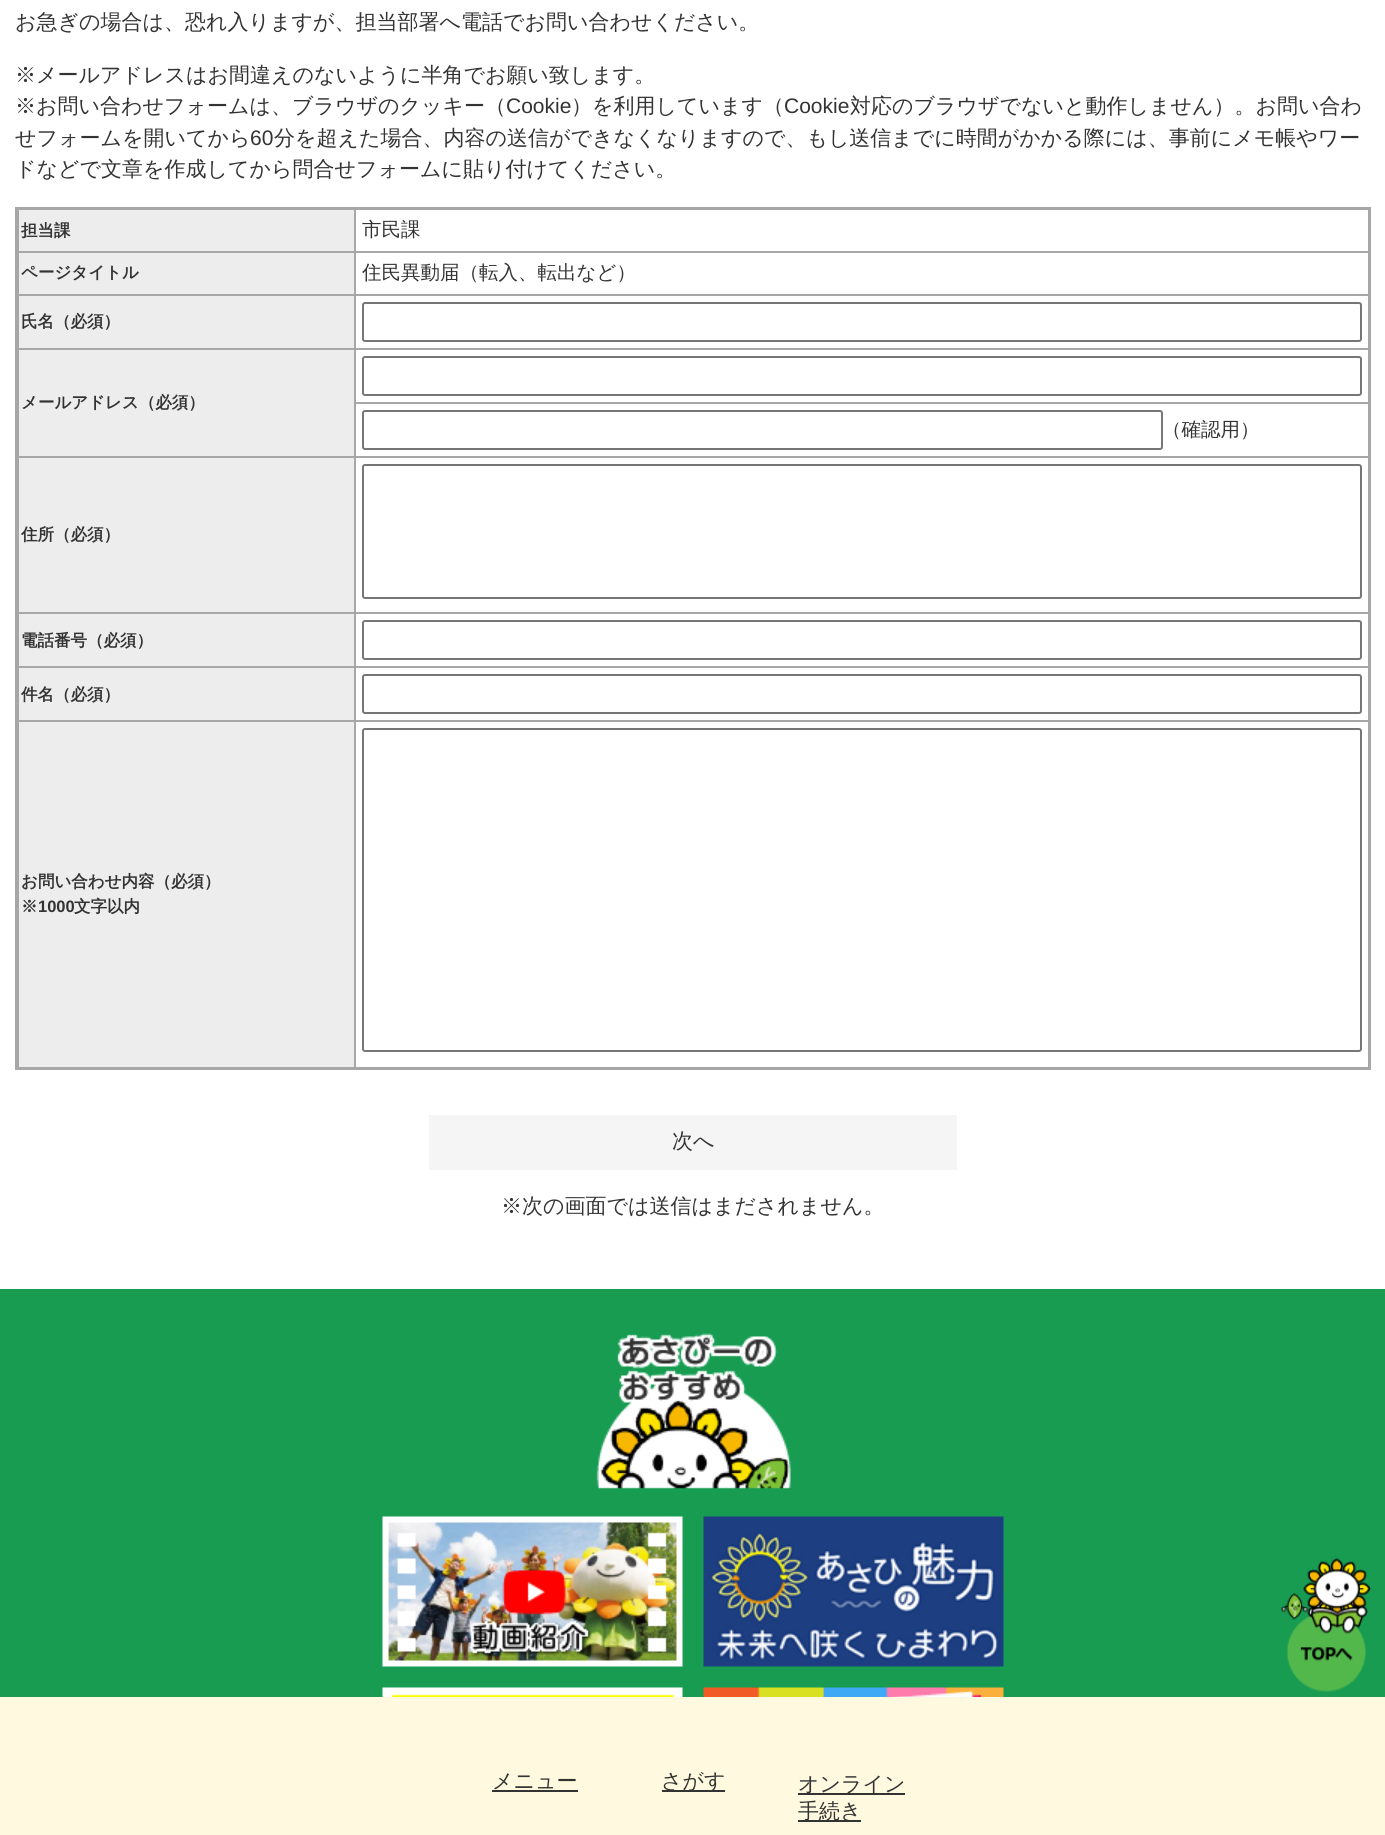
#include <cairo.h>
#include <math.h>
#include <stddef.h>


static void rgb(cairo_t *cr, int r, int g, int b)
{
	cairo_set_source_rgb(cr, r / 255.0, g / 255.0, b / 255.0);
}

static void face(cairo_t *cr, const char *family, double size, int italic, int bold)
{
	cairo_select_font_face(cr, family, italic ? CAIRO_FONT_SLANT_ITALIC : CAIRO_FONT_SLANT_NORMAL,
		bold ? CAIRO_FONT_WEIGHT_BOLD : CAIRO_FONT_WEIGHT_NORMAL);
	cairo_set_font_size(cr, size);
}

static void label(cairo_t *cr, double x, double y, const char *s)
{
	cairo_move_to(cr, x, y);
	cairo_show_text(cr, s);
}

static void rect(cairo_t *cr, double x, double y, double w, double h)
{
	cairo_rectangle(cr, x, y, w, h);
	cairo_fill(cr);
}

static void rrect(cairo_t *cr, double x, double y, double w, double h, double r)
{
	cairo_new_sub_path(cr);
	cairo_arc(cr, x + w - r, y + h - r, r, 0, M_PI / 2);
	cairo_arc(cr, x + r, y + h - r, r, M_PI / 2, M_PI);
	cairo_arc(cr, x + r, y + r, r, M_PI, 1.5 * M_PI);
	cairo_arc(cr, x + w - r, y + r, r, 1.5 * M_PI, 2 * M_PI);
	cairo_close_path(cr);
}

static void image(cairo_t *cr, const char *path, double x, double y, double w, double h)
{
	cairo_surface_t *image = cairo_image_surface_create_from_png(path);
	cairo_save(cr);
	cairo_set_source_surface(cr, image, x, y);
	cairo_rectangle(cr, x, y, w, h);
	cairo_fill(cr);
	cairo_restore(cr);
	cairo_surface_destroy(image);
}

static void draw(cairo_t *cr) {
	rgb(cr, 255, 255, 255);
	cairo_paint(cr);
	face(cr, "WenQuanYi Zen Hei Medium", 21, 0, 0);
	rgb(cr, 51, 51, 51);
	label(cr, 15, 29, "お急ぎの場合は、恐れ入りますが、担当部署へ電話でお問い合わせください。");
	label(cr, 15, 82, "※メールアドレスはお間違えのないように半角でお願い致します。");
	label(cr, 15, 113, "※お問い合わせフォームは、ブラウザのクッキー（");
	face(cr, "Liberation Sans", 21, 0, 0);
	label(cr, 506, 113, "Cookie");
	face(cr, "WenQuanYi Zen Hei Medium", 21, 0, 0);
	label(cr, 571, 113, "）を利用しています（");
	face(cr, "Liberation Sans", 21, 0, 0);
	label(cr, 784, 113, "Cookie");
	face(cr, "WenQuanYi Zen Hei Medium", 21, 0, 0);
	label(cr, 850, 113, "対応のブラウザでないと動作しません）。お問い合わ");
	label(cr, 15, 145, "せフォームを開いてから");
	face(cr, "Liberation Sans", 21, 0, 0);
	label(cr, 250, 145, "60");
	face(cr, "WenQuanYi Zen Hei Medium", 21, 0, 0);
	label(cr, 274, 145, "分を超えた場合、内容の送信ができなくなりますので、もし送信までに時間がかかる際には、事前にメモ帳やワー");
	label(cr, 15, 176, "ドなどで文章を作成してから問合せフォームに貼り付けてください。");
	rgb(cr, 167, 167, 167);
	rect(cr, 354, 251, 1017, 2);
	rect(cr, 354, 294, 1017, 2);
	rect(cr, 354, 348, 1017, 2);
	rect(cr, 354, 402, 1017, 2);
	rect(cr, 354, 456, 1017, 2);
	rect(cr, 354, 612, 1017, 2);
	rect(cr, 354, 666, 1017, 2);
	rect(cr, 354, 720, 1017, 2);
	rect(cr, 354, 720, 2, 348);
	rect(cr, 17, 720, 339, 2);
	rect(cr, 354, 666, 2, 56);
	rect(cr, 17, 666, 339, 2);
	rect(cr, 354, 612, 2, 56);
	rect(cr, 17, 612, 339, 2);
	rect(cr, 354, 456, 2, 158);
	rect(cr, 17, 456, 339, 2);
	rect(cr, 354, 402, 2, 56);
	rect(cr, 354, 348, 2, 56);
	rect(cr, 17, 348, 339, 2);
	rect(cr, 354, 294, 2, 56);
	rect(cr, 17, 294, 339, 2);
	rect(cr, 354, 251, 2, 45);
	rect(cr, 17, 251, 339, 2);
	rect(cr, 354, 207, 2, 45);
	rect(cr, 18, 720, 1, 348);
	rect(cr, 18, 666, 1, 56);
	rect(cr, 18, 612, 1, 56);
	rect(cr, 18, 456, 1, 158);
	rect(cr, 18, 348, 1, 110);
	rect(cr, 18, 294, 1, 56);
	rect(cr, 18, 207, 1, 89);
	rect(cr, 15, 207, 1356, 3);
	rect(cr, 1368, 207, 3, 863);
	rect(cr, 15, 1067, 1356, 3);
	rect(cr, 15, 207, 3, 863);
	rgb(cr, 238, 237, 237);
	rect(cr, 19, 210, 335, 41);
	face(cr, "WenQuanYi Zen Hei", 16.5, 0, 1);
	rgb(cr, 51, 51, 51);
	label(cr, 21, 236, "担当課");
	face(cr, "WenQuanYi Zen Hei Medium", 19.5, 0, 0);
	label(cr, 362, 236, "市民課");
	rgb(cr, 238, 237, 237);
	rect(cr, 19, 253, 335, 41);
	face(cr, "WenQuanYi Zen Hei", 16.5, 0, 1);
	rgb(cr, 51, 51, 51);
	label(cr, 21, 278, "ページタイトル");
	face(cr, "WenQuanYi Zen Hei Medium", 19.5, 0, 0);
	label(cr, 362, 279, "住民異動届（転入、転出など）");
	rgb(cr, 238, 237, 237);
	rect(cr, 19, 296, 335, 52);
	face(cr, "WenQuanYi Zen Hei", 16.5, 0, 1);
	rgb(cr, 51, 51, 51);
	label(cr, 21, 327, "氏名（必須）");
	rrect(cr, 363, 303, 998, 38, 2);
	rgb(cr, 118, 118, 118);
	cairo_stroke(cr);
	rgb(cr, 238, 237, 237);
	rect(cr, 19, 350, 335, 106);
	rgb(cr, 51, 51, 51);
	label(cr, 21, 408, "メールアドレス（必須）");
	rrect(cr, 363, 357, 998, 38, 2);
	rgb(cr, 118, 118, 118);
	cairo_stroke(cr);
	rrect(cr, 363, 411, 799, 38, 2);
	cairo_stroke(cr);
	face(cr, "WenQuanYi Zen Hei Medium", 19.5, 0, 0);
	rgb(cr, 51, 51, 51);
	label(cr, 1162, 436, "（確認用）");
	rgb(cr, 238, 237, 237);
	rect(cr, 19, 458, 335, 154);
	face(cr, "WenQuanYi Zen Hei", 16.5, 0, 1);
	rgb(cr, 51, 51, 51);
	label(cr, 21, 540, "住所（必須）");
	rrect(cr, 363, 465, 998, 133, 2);
	rgb(cr, 118, 118, 118);
	cairo_stroke(cr);
	rgb(cr, 238, 237, 237);
	rect(cr, 19, 614, 335, 52);
	rgb(cr, 51, 51, 51);
	label(cr, 21, 646, "電話番号（必須）");
	rrect(cr, 363, 621, 998, 38, 2);
	rgb(cr, 118, 118, 118);
	cairo_stroke(cr);
	rgb(cr, 238, 237, 237);
	rect(cr, 19, 668, 335, 52);
	rgb(cr, 51, 51, 51);
	label(cr, 21, 700, "件名（必須）");
	rrect(cr, 363, 675, 998, 38, 2);
	rgb(cr, 118, 118, 118);
	cairo_stroke(cr);
	rgb(cr, 238, 237, 237);
	rect(cr, 19, 722, 335, 345);
	rgb(cr, 51, 51, 51);
	label(cr, 21, 887, "お問い合わせ内容（必須）");
	label(cr, 21, 912, "※");
	face(cr, "Liberation Sans", 16.5, 0, 1);
	label(cr, 38, 912, "1000");
	face(cr, "WenQuanYi Zen Hei", 16.5, 0, 1);
	label(cr, 74, 912, "文字以内");
	rrect(cr, 363, 729, 998, 322, 2);
	rgb(cr, 118, 118, 118);
	cairo_stroke(cr);
	rgb(cr, 245, 245, 245);
	rect(cr, 429, 1115, 528, 55);
	face(cr, "WenQuanYi Zen Hei Medium", 21, 0, 0);
	rgb(cr, 51, 51, 51);
	label(cr, 672, 1148, "次へ");
	label(cr, 501, 1213, "※次の画面では送信はまだされません。");
	rgb(cr, 23, 156, 82);
	rect(cr, 0, 1289, 1385, 408);
	image(cr, "image0.png", 596, 1333, 195, 156);
	image(cr, "image1.png", 382, 1516, 301, 151);
	image(cr, "image2.png", 703, 1516, 301, 151);
	image(cr, "image3.png", 382, 1687, 301, 10);
	image(cr, "image4.png", 703, 1687, 301, 10);
	image(cr, "image5.png", 1281, 1558, 90, 134);
	rgb(cr, 255, 249, 223);
	rect(cr, 0, 1697, 1385, 138);
	rgb(cr, 51, 51, 51);
	label(cr, 492, 1788, "メニュー");
	rect(cr, 492, 1790, 86, 2);
	rect(cr, 662, 1790, 63, 2);
	label(cr, 661, 1788, "さがす");
	rect(cr, 798, 1793, 107, 2);
	label(cr, 798, 1791, "オンライン");
	rect(cr, 798, 1820, 63, 2);
	label(cr, 798, 1818, "手続き");
}

int main(void) {
	cairo_surface_t *surface = cairo_image_surface_create(CAIRO_FORMAT_RGB24, 1385, 1835);
	cairo_t *cr = cairo_create(surface);
	cairo_font_options_t *options = cairo_font_options_create();
	cairo_font_options_set_hint_metrics(options, CAIRO_HINT_METRICS_OFF);
	cairo_font_options_set_hint_style(options, CAIRO_HINT_STYLE_NONE);
	cairo_set_font_options(cr, options);
	cairo_set_miter_limit(cr, 4);
	draw(cr);
	cairo_surface_write_to_png(surface, "render.png");
	cairo_font_options_destroy(options);
	cairo_destroy(cr);
	cairo_surface_destroy(surface);
	return 0;
}
